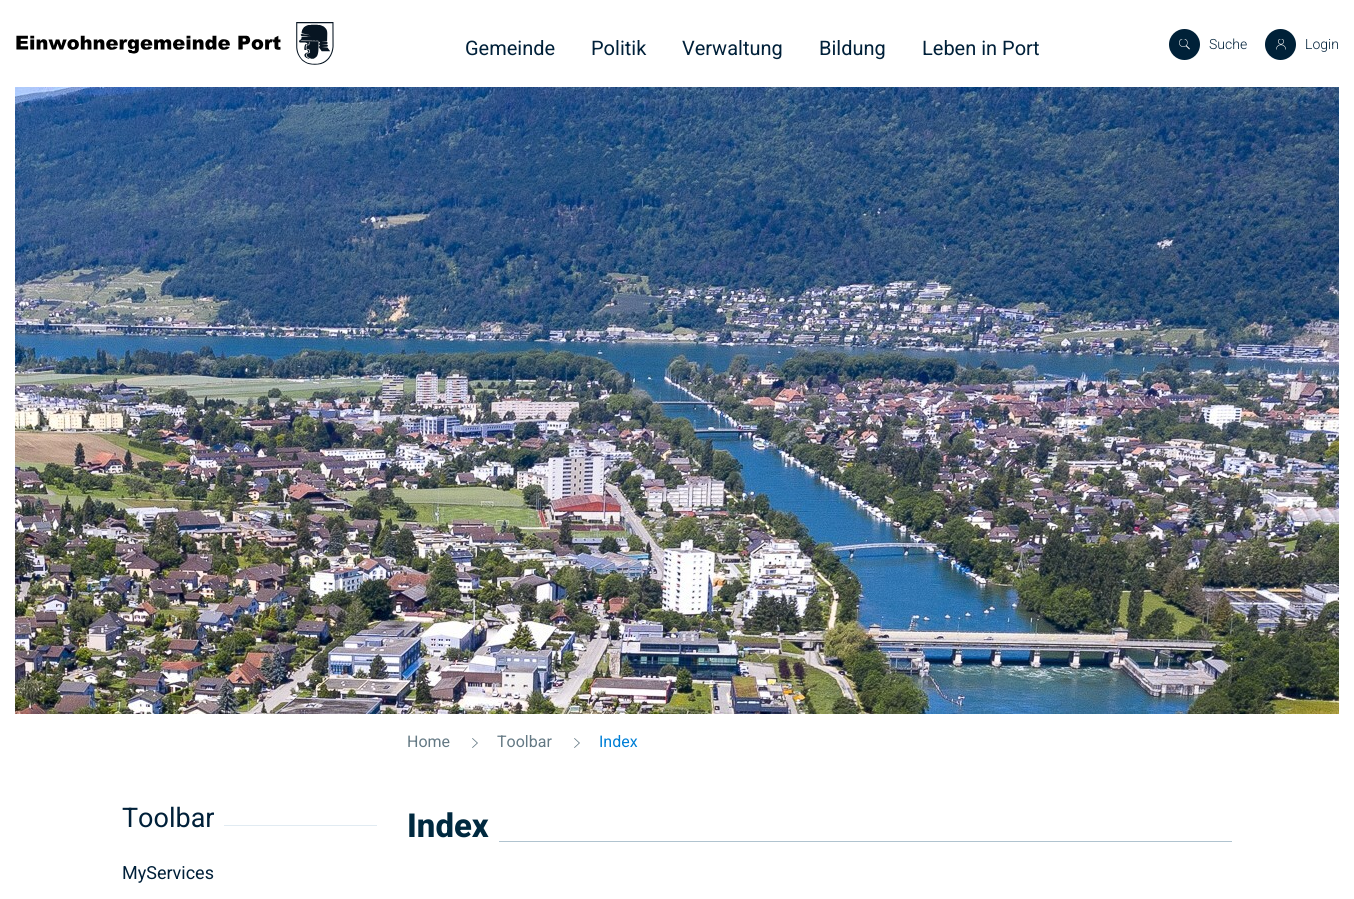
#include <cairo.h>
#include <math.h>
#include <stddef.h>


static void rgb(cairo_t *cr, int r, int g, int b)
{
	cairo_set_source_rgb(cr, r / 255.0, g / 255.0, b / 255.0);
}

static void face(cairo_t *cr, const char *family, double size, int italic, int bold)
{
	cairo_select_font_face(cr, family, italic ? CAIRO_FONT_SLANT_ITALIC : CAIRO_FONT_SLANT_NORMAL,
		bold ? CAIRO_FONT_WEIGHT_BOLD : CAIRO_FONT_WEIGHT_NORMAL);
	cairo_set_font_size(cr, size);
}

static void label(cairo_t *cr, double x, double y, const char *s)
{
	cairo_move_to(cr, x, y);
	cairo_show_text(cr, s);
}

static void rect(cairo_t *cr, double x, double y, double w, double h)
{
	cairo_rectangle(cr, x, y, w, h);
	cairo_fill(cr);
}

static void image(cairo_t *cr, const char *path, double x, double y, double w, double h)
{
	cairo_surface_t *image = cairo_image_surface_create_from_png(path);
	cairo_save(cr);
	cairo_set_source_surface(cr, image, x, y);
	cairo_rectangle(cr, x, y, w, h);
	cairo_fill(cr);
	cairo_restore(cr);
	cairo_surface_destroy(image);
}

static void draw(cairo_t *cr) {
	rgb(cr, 255, 255, 255);
	cairo_paint(cr);
	image(cr, "image0.png", 16, 22, 318, 43);
	face(cr, "Roboto", 20, 0, 0);
	rgb(cr, 0, 32, 57);
	label(cr, 465, 55, "Gemeinde");
	label(cr, 591, 55, "Politik");
	label(cr, 682, 55, "Verwaltung");
	label(cr, 819, 55, "Bildung");
	label(cr, 922, 55, "Leben in Port");
	rgb(cr, 0, 33, 56);
	cairo_new_path(cr);
	cairo_arc(cr, 1184.5, 44.5, 15.5, 0, 2 * M_PI);
	cairo_fill(cr);
	image(cr, "image1.png", 1179, 39, 11, 11);
	face(cr, "Roboto Light", 14, 0, 0);
	rgb(cr, 0, 32, 57);
	label(cr, 1209, 49, "Suche");
	rgb(cr, 0, 33, 56);
	cairo_new_path(cr);
	cairo_arc(cr, 1280.5, 44.5, 15.5, 0, 2 * M_PI);
	cairo_fill(cr);
	image(cr, "image2.png", 1276, 39, 10, 11);
	rgb(cr, 0, 32, 57);
	label(cr, 1305, 49, "Login");
	image(cr, "image3.png", 15, 87, 1324, 627);
	face(cr, "Roboto", 16, 0, 0);
	rgb(cr, 100, 121, 132);
	label(cr, 407, 747, "Home");
	image(cr, "image4.png", 472, 738, 6, 10);
	label(cr, 497, 747, "Toolbar");
	image(cr, "image4.png", 574, 738, 6, 10);
	rgb(cr, 0, 127, 214);
	label(cr, 599, 747, "Index");
	face(cr, "Roboto", 27, 0, 0);
	rgb(cr, 0, 32, 57);
	label(cr, 122, 827, "Toolbar");
	rgb(cr, 225, 235, 242);
	rect(cr, 224, 825, 153, 1);
	face(cr, "Roboto", 18, 0, 0);
	rgb(cr, 0, 32, 57);
	label(cr, 122, 879, "MyServices");
	face(cr, "Roboto ExtraBold", 33, 0, 0);
	rgb(cr, 0, 41, 63);
	label(cr, 407, 837, "Index");
	rgb(cr, 176, 195, 207);
	rect(cr, 499, 841, 733, 1);
}

int main(void) {
	cairo_surface_t *surface = cairo_image_surface_create(CAIRO_FORMAT_RGB24, 1354, 899);
	cairo_t *cr = cairo_create(surface);
	cairo_font_options_t *options = cairo_font_options_create();
	cairo_font_options_set_hint_metrics(options, CAIRO_HINT_METRICS_OFF);
	cairo_font_options_set_hint_style(options, CAIRO_HINT_STYLE_NONE);
	cairo_set_font_options(cr, options);
	cairo_set_miter_limit(cr, 4);
	draw(cr);
	cairo_surface_write_to_png(surface, "render.png");
	cairo_font_options_destroy(options);
	cairo_destroy(cr);
	cairo_surface_destroy(surface);
	return 0;
}
